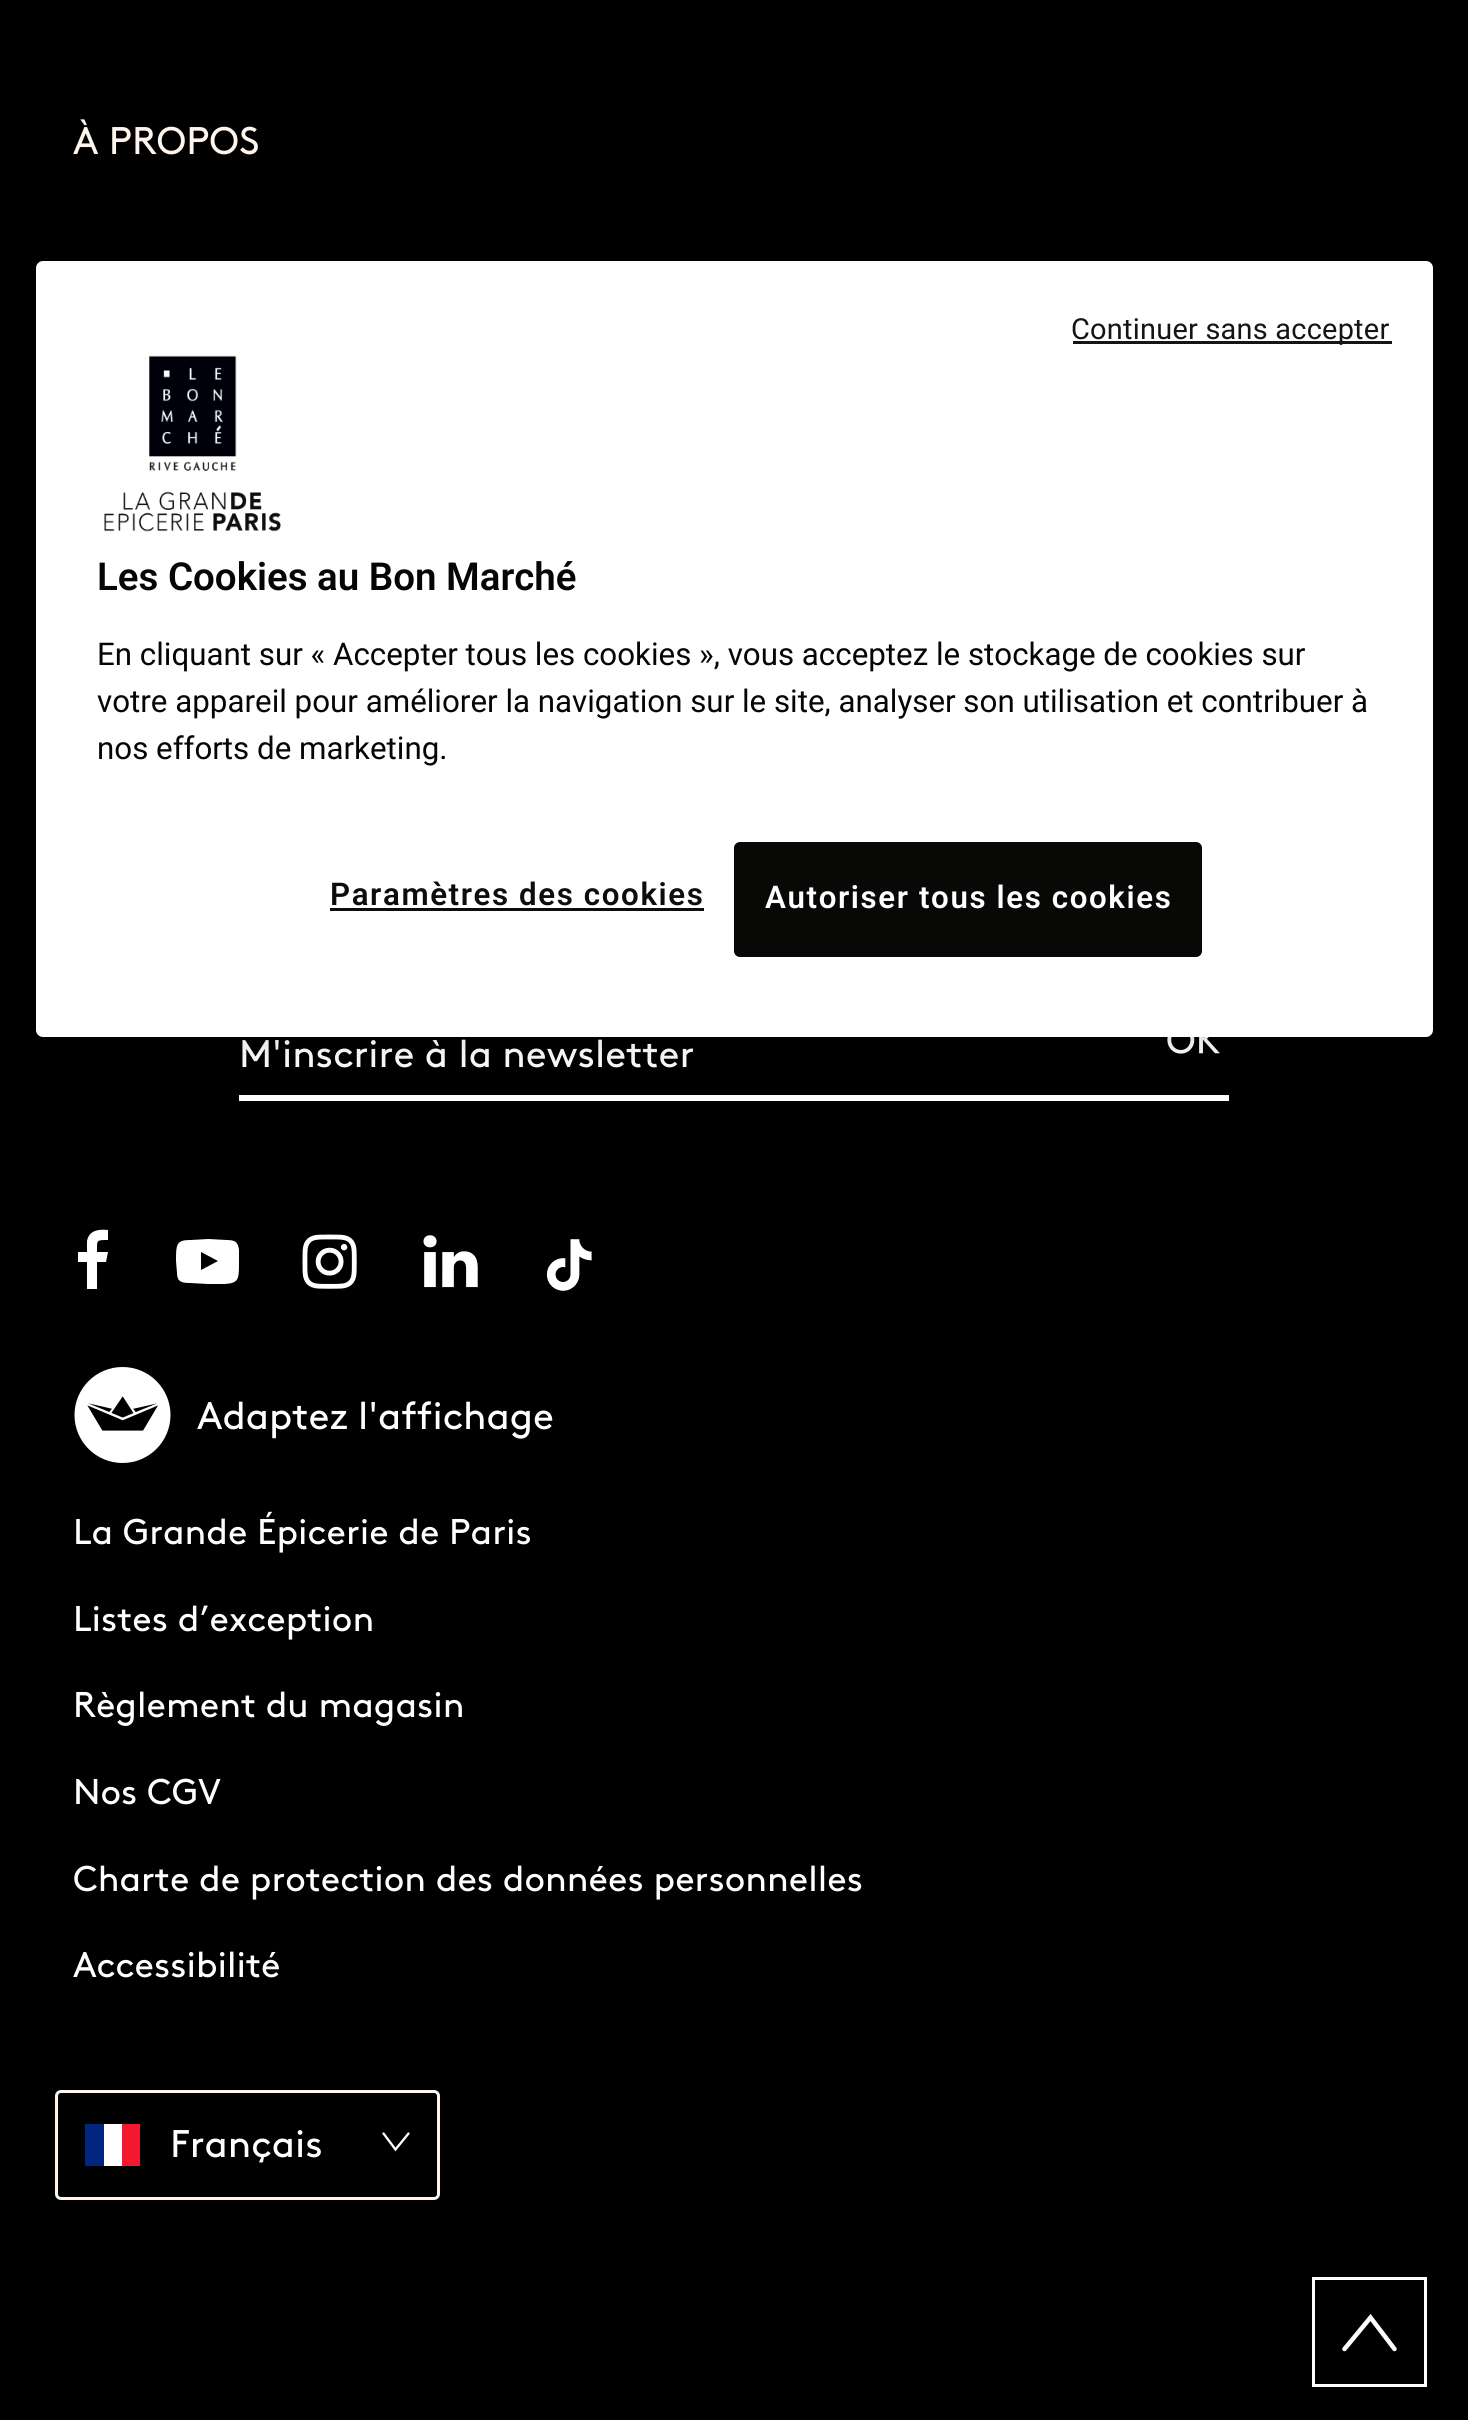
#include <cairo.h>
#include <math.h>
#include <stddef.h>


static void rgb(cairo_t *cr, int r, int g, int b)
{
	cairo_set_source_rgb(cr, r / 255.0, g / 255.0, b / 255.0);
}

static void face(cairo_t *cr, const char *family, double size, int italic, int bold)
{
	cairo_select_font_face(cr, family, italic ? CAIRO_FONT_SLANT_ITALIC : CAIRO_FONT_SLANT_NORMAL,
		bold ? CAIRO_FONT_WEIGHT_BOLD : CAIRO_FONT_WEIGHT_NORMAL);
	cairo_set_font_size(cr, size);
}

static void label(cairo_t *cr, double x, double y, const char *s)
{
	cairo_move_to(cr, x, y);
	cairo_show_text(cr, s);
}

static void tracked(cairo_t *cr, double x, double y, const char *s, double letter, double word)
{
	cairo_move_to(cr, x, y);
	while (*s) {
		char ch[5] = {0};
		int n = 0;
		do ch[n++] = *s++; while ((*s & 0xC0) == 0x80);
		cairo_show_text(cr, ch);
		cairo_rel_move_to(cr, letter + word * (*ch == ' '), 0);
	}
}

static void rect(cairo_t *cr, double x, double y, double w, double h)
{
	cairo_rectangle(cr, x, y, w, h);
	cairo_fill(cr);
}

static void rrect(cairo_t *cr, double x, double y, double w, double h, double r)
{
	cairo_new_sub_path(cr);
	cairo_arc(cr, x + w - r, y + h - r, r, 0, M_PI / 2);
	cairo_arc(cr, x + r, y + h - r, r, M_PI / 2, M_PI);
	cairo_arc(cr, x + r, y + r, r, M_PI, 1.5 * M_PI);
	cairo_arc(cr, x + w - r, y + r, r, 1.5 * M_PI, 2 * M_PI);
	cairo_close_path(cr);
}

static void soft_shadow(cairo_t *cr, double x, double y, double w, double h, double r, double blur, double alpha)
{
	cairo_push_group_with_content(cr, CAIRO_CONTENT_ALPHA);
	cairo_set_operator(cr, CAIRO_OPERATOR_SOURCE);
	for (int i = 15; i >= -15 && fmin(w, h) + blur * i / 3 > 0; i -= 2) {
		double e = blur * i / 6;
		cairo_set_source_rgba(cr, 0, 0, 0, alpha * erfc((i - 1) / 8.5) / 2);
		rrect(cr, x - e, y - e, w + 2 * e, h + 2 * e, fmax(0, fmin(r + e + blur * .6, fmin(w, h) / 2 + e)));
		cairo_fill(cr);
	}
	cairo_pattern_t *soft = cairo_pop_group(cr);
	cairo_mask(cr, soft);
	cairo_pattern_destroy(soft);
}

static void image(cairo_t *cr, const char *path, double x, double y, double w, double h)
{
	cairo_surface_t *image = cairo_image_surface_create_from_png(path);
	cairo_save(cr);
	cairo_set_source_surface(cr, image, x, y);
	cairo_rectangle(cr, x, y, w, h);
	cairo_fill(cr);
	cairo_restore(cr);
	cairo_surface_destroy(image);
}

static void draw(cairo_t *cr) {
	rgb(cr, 0, 0, 0);
	cairo_paint(cr);
	face(cr, "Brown", 38.5, 0, 0);
	rgb(cr, 255, 245, 236);
	label(cr, 73, 154, "À PROPOS");
	rgb(cr, 255, 255, 255);
	rect(cr, 239, 1095, 990, 6);
	label(cr, 239, 1067, "M'inscrire à la newsletter");
	image(cr, "image0.png", 1167, 1037, 53, 17);
	cairo_new_path(cr);
	cairo_move_to(cr, 108, 1230);
	cairo_line_to(cr, 108, 1240);
	cairo_curve_to(cr, 96, 1240, 97, 1240, 97, 1252);
	cairo_line_to(cr, 108, 1252);
	cairo_line_to(cr, 106, 1262);
	cairo_line_to(cr, 97, 1262);
	cairo_line_to(cr, 97, 1289);
	cairo_line_to(cr, 87, 1289);
	cairo_line_to(cr, 87, 1262);
	cairo_line_to(cr, 78, 1262);
	cairo_line_to(cr, 78, 1252);
	cairo_line_to(cr, 87, 1252);
	cairo_line_to(cr, 87, 1241);
	cairo_curve_to(cr, 89, 1230, 99, 1229, 108, 1230);
	cairo_close_path(cr);
	cairo_fill(cr);
	cairo_new_path(cr);
	cairo_move_to(cr, 201, 1270);
	cairo_line_to(cr, 218, 1261);
	cairo_line_to(cr, 201, 1252);
	cairo_close_path(cr);
	cairo_move_to(cr, 208, 1239);
	cairo_line_to(cr, 226, 1240);
	cairo_curve_to(cr, 234, 1240, 238, 1241, 239, 1250);
	cairo_line_to(cr, 239, 1262);
	cairo_curve_to(cr, 239, 1279, 239, 1283, 225, 1284);
	cairo_line_to(cr, 208, 1284);
	cairo_line_to(cr, 190, 1283);
	cairo_curve_to(cr, 182, 1283, 177, 1282, 177, 1273);
	cairo_line_to(cr, 176, 1261);
	cairo_curve_to(cr, 176, 1245, 176, 1240, 190, 1240);
	cairo_close_path(cr);
	cairo_fill(cr);
	image(cr, "image1.png", 302, 1234, 55, 55);
	image(cr, "image2.png", 423, 1235, 55, 53);
	image(cr, "image3.png", 546, 1239, 46, 52);
	image(cr, "image4.png", 74, 1367, 97, 96);
	label(cr, 197, 1429, "Adaptez l'affichage");
	cairo_rectangle(cr, 1313.5, 2278.5, 112, 107);
	cairo_set_line_width(cr, 3);
	cairo_stroke(cr);
	cairo_new_path(cr);
	cairo_move_to(cr, 1344.5, 2349);
	cairo_line_to(cr, 1370.5, 2317.5);
	cairo_line_to(cr, 1394.5, 2349);
	cairo_set_line_width(cr, 4.5);
	cairo_set_line_cap(cr, CAIRO_LINE_CAP_ROUND);
	cairo_stroke(cr);
	face(cr, "Brown", 35.75, 0, 0);
	label(cr, 73, 1544, "La Grande Épicerie de Paris");
	label(cr, 73, 1631, "Listes d’exception");
	label(cr, 73, 1717, "Règlement du magasin");
	label(cr, 73, 1804, "Nos CGV");
	label(cr, 73, 1891, "Charte de protection des données personnelles");
	label(cr, 73, 1977, "Accessibilité");
	rrect(cr, 56.5, 2091.5, 382, 107, 4.5);
	rgb(cr, 255, 245, 236);
	cairo_set_line_width(cr, 3);
	cairo_set_line_cap(cr, CAIRO_LINE_CAP_BUTT);
	cairo_stroke(cr);
	rgb(cr, 255, 255, 255);
	rect(cr, 104, 2124, 18, 42);
	rgb(cr, 0, 38, 127);
	rect(cr, 85, 2124, 19, 42);
	rgb(cr, 243, 24, 48);
	rect(cr, 122, 2124, 18, 42);
	face(cr, "Brown", 38.5, 0, 0);
	rgb(cr, 255, 255, 255);
	label(cr, 170, 2157, "Français");
	cairo_new_path(cr);
	cairo_move_to(cr, 408.5, 2133.5);
	cairo_line_to(cr, 395.5, 2149.5);
	cairo_line_to(cr, 383.5, 2133.5);
	cairo_set_line_width(cr, 2.3);
	cairo_set_line_cap(cr, CAIRO_LINE_CAP_ROUND);
	cairo_stroke(cr);
	rgb(cr, 0, 0, 0);
	soft_shadow(cr, 36, 261, 1397, 776, 7, 25, 0.2);
	rgb(cr, 255, 255, 255);
	rrect(cr, 36, 261, 1397, 776, 7);
	cairo_fill(cr);
	rgb(cr, 21, 21, 20);
	rect(cr, 1073, 341, 319, 3);
	face(cr, "Roboto", 28.9, 0, 0);
	tracked(cr, 1071, 339, "Continuer sans accepter", 0.25, 0);
	image(cr, "image5.png", 104, 355, 177, 177);
	face(cr, "Roboto SemiBold", 38.5, 0, 0);
	rgb(cr, 5, 5, 5);
	label(cr, 97, 590, "Les Cookies au Bon Marché");
	face(cr, "Roboto", 31.3, 0, 0);
	label(cr, 97, 665, "En cliquant sur « Accepter tous les cookies », vous acceptez le stockage de cookies sur");
	label(cr, 97, 712, "votre appareil pour améliorer la navigation sur le site, analyser son utilisation et contribuer à");
	label(cr, 97, 759, "nos efforts de marketing.");
	face(cr, "Roboto SemiBold", 31.3, 0, 0);
	rgb(cr, 14, 13, 12);
	tracked(cr, 330, 905, "Paramètres des cookies", 1.6, 0);
	rect(cr, 330, 908, 374, 3);
	rgb(cr, 8, 8, 7);
	rrect(cr, 735.5, 843.5, 465, 112, 4.5);
	cairo_fill_preserve(cr);
	cairo_set_line_width(cr, 3);
	cairo_set_line_cap(cr, CAIRO_LINE_CAP_BUTT);
	cairo_stroke(cr);
	rgb(cr, 255, 255, 255);
	tracked(cr, 765, 908, "Autoriser tous les cookies", 1.6, 0);
}

int main(void) {
	cairo_surface_t *surface = cairo_image_surface_create(CAIRO_FORMAT_RGB24, 1468, 2420);
	cairo_t *cr = cairo_create(surface);
	cairo_font_options_t *options = cairo_font_options_create();
	cairo_font_options_set_hint_metrics(options, CAIRO_HINT_METRICS_OFF);
	cairo_font_options_set_hint_style(options, CAIRO_HINT_STYLE_NONE);
	cairo_set_font_options(cr, options);
	cairo_set_miter_limit(cr, 4);
	draw(cr);
	cairo_surface_write_to_png(surface, "render.png");
	cairo_font_options_destroy(options);
	cairo_destroy(cr);
	cairo_surface_destroy(surface);
	return 0;
}
